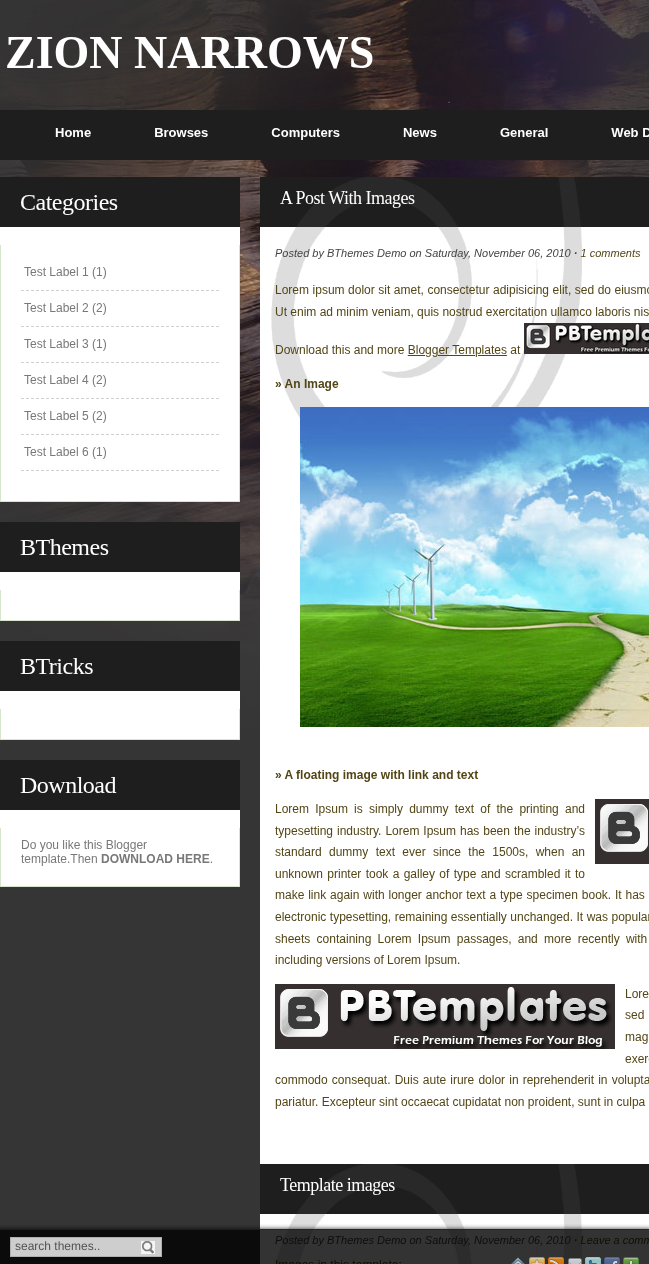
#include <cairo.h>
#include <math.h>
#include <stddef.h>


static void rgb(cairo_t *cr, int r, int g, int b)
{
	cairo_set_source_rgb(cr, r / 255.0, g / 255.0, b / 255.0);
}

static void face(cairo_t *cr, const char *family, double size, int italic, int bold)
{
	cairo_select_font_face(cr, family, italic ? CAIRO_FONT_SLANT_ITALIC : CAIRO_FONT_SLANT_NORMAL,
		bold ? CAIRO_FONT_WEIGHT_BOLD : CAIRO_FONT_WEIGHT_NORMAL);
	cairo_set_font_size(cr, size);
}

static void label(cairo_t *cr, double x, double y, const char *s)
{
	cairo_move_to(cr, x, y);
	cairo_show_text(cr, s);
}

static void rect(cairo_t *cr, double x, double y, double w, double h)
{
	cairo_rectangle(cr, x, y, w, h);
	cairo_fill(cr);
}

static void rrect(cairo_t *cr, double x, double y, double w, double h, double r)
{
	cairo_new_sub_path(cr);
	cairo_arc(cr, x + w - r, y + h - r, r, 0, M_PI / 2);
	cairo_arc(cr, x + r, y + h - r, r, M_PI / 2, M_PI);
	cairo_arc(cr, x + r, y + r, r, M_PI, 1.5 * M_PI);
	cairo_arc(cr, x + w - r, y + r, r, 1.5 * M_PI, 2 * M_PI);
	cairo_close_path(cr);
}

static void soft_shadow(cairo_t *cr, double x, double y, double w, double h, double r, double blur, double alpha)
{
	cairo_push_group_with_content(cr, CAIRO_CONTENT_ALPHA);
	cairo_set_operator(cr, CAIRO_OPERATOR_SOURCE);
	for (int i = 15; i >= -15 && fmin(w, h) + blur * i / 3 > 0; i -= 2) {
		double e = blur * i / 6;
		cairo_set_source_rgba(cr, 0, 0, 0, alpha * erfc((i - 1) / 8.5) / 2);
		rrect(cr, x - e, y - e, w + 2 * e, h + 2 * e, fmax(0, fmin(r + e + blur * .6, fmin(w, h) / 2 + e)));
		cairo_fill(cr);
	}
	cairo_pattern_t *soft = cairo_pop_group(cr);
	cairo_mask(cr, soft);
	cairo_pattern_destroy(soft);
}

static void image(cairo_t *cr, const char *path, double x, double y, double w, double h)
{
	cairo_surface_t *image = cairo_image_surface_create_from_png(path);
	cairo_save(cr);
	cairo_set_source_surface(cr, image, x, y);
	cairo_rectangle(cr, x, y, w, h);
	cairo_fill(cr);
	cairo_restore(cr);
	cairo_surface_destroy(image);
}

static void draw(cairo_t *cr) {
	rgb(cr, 255, 255, 255);
	cairo_paint(cr);
	image(cr, "image0.png", 0, 0, 649, 1264);
	cairo_save(cr);
	cairo_rectangle(cr, 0, 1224, 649, 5);
	cairo_clip(cr);
	rgb(cr, 0, 0, 0);
	soft_shadow(cr, 0, 1229, 649, 35, 0, 2.5, 0.8);
	cairo_restore(cr);
	cairo_set_source_rgba(cr, 0, 0, 0, 0.8);
	rect(cr, 0, 1229, 649, 35);
	cairo_set_source_rgba(cr, 0.133, 0.133, 0.133, 0.8);
	rect(cr, 0, 1229, 649, 1);
	rgb(cr, 207, 206, 206);
	cairo_rectangle(cr, 10.5, 1237.5, 151, 19);
	cairo_fill_preserve(cr);
	rgb(cr, 178, 175, 175);
	cairo_set_line_width(cr, 1);
	cairo_stroke(cr);
	face(cr, "Liberation Sans", 12, 0, 0);
	rgb(cr, 80, 80, 80);
	label(cr, 15, 1250, "search themes..");
	image(cr, "image1.png", 141, 1241, 14, 13);
	image(cr, "image2.png", 511, 1257, 14, 7);
	image(cr, "image3.png", 529, 1257, 16, 7);
	image(cr, "image4.png", 548, 1257, 16, 7);
	image(cr, "image5.png", 568, 1258, 14, 6);
	image(cr, "image6.png", 585, 1257, 16, 7);
	image(cr, "image7.png", 604, 1257, 16, 7);
	image(cr, "image8.png", 623, 1257, 16, 7);
}

int main(void) {
	cairo_surface_t *surface = cairo_image_surface_create(CAIRO_FORMAT_RGB24, 649, 1264);
	cairo_t *cr = cairo_create(surface);
	cairo_font_options_t *options = cairo_font_options_create();
	cairo_font_options_set_hint_metrics(options, CAIRO_HINT_METRICS_OFF);
	cairo_font_options_set_hint_style(options, CAIRO_HINT_STYLE_NONE);
	cairo_set_font_options(cr, options);
	cairo_set_miter_limit(cr, 4);
	draw(cr);
	cairo_surface_write_to_png(surface, "render.png");
	cairo_font_options_destroy(options);
	cairo_destroy(cr);
	cairo_surface_destroy(surface);
	return 0;
}
